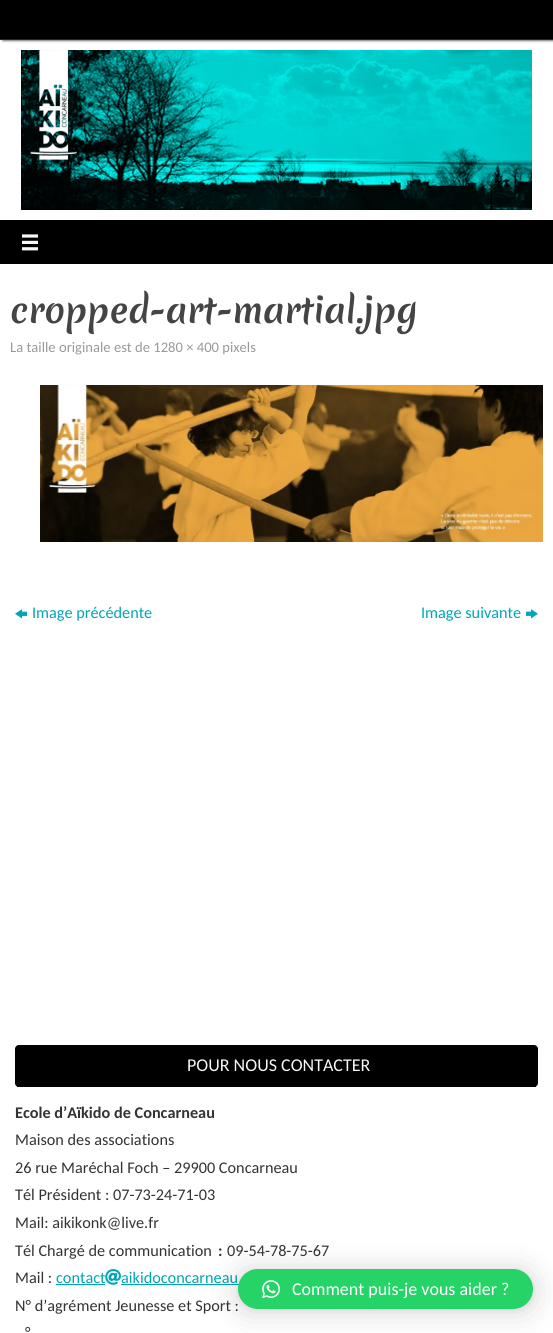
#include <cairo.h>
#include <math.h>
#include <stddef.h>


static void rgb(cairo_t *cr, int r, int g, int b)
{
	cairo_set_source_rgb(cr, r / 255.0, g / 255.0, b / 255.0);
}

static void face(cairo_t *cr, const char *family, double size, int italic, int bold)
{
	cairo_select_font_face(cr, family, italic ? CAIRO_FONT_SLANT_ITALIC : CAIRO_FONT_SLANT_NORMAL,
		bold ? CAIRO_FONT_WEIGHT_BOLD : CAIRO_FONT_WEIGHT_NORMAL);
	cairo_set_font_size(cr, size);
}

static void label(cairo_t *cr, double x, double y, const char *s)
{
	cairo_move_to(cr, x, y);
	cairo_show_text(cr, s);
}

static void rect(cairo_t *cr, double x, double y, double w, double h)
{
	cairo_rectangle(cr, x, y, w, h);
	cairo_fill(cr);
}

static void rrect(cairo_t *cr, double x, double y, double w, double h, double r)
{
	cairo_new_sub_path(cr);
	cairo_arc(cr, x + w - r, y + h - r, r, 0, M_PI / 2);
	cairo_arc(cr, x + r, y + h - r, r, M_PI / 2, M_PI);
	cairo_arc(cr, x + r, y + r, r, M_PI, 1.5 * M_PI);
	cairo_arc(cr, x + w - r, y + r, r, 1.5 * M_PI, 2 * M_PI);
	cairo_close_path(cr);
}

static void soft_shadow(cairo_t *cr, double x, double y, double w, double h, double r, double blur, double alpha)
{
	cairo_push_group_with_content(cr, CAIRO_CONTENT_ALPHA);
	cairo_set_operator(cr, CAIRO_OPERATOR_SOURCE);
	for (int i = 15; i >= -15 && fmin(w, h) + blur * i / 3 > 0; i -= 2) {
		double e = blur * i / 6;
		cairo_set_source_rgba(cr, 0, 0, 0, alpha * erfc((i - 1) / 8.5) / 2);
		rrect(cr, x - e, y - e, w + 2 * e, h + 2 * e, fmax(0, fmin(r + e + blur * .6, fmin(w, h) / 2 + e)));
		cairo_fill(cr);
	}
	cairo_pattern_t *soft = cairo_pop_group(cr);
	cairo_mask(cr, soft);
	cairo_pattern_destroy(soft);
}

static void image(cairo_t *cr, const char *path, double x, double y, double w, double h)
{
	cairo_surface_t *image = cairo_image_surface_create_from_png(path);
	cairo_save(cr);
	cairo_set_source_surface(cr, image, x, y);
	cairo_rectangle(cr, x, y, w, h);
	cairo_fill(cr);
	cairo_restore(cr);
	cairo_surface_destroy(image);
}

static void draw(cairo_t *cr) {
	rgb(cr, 255, 255, 255);
	cairo_paint(cr);
	rgb(cr, 0, 0, 0);
	soft_shadow(cr, 3, 0, 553, 40, 0, 1.5, 1);
	rgb(cr, 0, 0, 0);
	rect(cr, 0, 0, 553, 39);
	rgb(cr, 40, 40, 40);
	rect(cr, 0, 39, 553, 1);
	image(cr, "image0.png", 21, 50, 511, 160);
	rgb(cr, 0, 0, 0);
	rect(cr, 0, 220, 553, 44);
	image(cr, "image1.png", 22, 234, 16, 17);
	face(cr, "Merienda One", 34, 0, 0);
	rgb(cr, 68, 68, 68);
	label(cr, 10, 323, "cropped-art-martial.jpg");
	face(cr, "Carlito", 14.6, 0, 0);
	rgb(cr, 153, 153, 153);
	label(cr, 10, 352, "La taille originale est de 1280 × 400 pixels");
	image(cr, "image2.png", 40, 385, 503, 157);
	image(cr, "image3.png", 15, 609, 12, 10);
	face(cr, "Carlito", 16.25, 0, 0);
	rgb(cr, 0, 166, 182);
	label(cr, 32, 618, "Image précédente");
	label(cr, 421, 618, "Image suivante");
	image(cr, "image4.png", 526, 609, 12, 10);
	rgb(cr, 0, 0, 0);
	rrect(cr, 15, 1045, 523, 42, 4);
	cairo_fill(cr);
	rect(cr, 17, 1086, 519, 1);
	face(cr, "Carlito", 18, 0, 0);
	rgb(cr, 247, 247, 247);
	label(cr, 187, 1071, "POUR NOUS CONTACTER");
	face(cr, "Carlito", 16.25, 0, 1);
	rgb(cr, 51, 51, 51);
	label(cr, 15, 1118, "Ecole d’Aïkido de Concarneau");
	face(cr, "Carlito", 16.25, 0, 0);
	label(cr, 15, 1145, "Maison des associations");
	label(cr, 15, 1173, "26 rue Maréchal Foch – 29900 Concarneau");
	label(cr, 15, 1200, "Tél Président : 07-73-24-71-03");
	label(cr, 15, 1228, "Mail: aikikonk@live.fr");
	label(cr, 15, 1256, "Tél Chargé de communication");
	face(cr, "Carlito", 16.25, 0, 1);
	label(cr, 218, 1256, ":");
	face(cr, "Carlito", 16.25, 0, 0);
	label(cr, 227, 1256, "09-54-78-75-67");
	label(cr, 15, 1283, "Mail :");
	rgb(cr, 0, 166, 182);
	label(cr, 56, 1283, "contact");
	rect(cr, 56, 1284, 49, 1);
	image(cr, "image5.png", 105, 1269, 16, 16);
	label(cr, 121, 1283, "aikidoconcarneau");
	rect(cr, 121, 1284, 118, 1);
	rgb(cr, 51, 51, 51);
	label(cr, 15, 1311, "N° d’agrément Jeunesse et Sport :");
	label(cr, 25, 1338, "°");
	rgb(cr, 0, 0, 0);
	soft_shadow(cr, 238, 1271, 295, 40, 20, 16, 0.16);
	soft_shadow(cr, 238, 1270, 295, 40, 20, 3, 0.06);
	rgb(cr, 37, 211, 102);
	rrect(cr, 238, 1269, 295, 40, 20);
	cairo_fill(cr);
	image(cr, "image6.png", 262, 1280, 18, 19);
	face(cr, "Carlito", 18, 0, 0);
	rgb(cr, 255, 255, 255);
	label(cr, 292, 1295, "Comment puis-je vous aider ?");
}

int main(void) {
	cairo_surface_t *surface = cairo_image_surface_create(CAIRO_FORMAT_RGB24, 553, 1333);
	cairo_t *cr = cairo_create(surface);
	cairo_font_options_t *options = cairo_font_options_create();
	cairo_font_options_set_hint_metrics(options, CAIRO_HINT_METRICS_OFF);
	cairo_font_options_set_hint_style(options, CAIRO_HINT_STYLE_NONE);
	cairo_set_font_options(cr, options);
	cairo_set_miter_limit(cr, 4);
	draw(cr);
	cairo_surface_write_to_png(surface, "render.png");
	cairo_font_options_destroy(options);
	cairo_destroy(cr);
	cairo_surface_destroy(surface);
	return 0;
}
